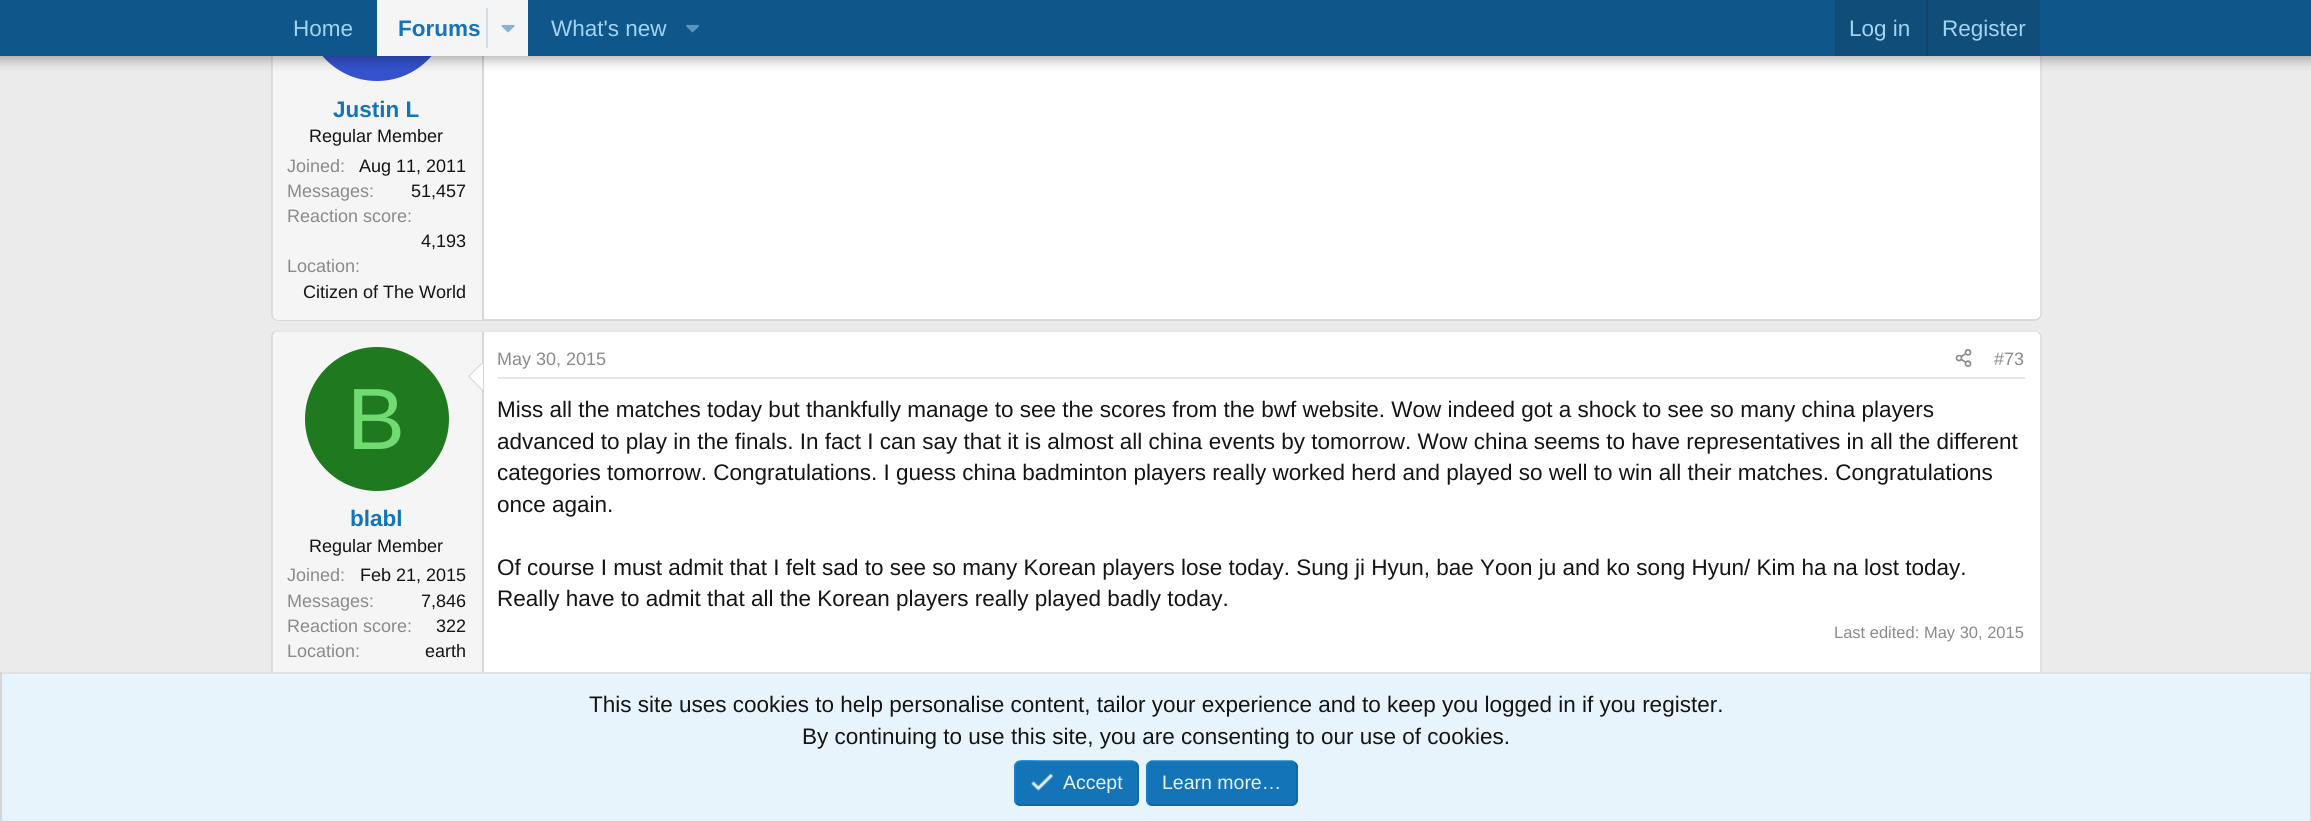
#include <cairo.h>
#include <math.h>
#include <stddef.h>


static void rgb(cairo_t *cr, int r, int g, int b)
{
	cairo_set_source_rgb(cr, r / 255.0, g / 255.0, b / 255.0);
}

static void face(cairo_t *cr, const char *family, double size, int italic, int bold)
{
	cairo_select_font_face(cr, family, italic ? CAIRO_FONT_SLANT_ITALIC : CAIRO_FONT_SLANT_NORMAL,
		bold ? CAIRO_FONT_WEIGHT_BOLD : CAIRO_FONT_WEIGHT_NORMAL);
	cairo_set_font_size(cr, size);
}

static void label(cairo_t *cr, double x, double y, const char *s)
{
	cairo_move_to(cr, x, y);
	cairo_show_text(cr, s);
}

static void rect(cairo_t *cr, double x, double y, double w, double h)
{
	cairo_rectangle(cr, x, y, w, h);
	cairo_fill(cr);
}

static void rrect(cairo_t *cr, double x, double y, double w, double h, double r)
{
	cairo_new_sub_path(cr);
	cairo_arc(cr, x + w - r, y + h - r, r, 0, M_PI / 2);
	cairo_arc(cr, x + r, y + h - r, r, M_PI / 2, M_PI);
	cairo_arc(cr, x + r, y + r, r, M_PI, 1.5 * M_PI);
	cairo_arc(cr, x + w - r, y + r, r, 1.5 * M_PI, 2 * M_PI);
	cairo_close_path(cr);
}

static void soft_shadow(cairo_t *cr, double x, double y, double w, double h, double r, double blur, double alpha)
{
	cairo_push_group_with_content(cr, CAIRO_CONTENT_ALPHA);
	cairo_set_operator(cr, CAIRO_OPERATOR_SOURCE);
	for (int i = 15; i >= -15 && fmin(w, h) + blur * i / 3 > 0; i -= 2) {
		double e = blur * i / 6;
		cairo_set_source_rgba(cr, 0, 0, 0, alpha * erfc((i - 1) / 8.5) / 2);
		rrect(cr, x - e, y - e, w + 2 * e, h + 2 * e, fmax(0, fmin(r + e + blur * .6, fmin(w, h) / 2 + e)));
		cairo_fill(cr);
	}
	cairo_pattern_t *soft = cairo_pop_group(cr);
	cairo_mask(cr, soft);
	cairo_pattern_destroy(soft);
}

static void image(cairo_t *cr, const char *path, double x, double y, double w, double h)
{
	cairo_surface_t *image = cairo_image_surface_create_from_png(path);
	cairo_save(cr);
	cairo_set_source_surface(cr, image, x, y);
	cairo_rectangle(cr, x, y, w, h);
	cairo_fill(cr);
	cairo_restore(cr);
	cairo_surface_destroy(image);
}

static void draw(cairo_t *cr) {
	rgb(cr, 235, 235, 235);
	cairo_paint(cr);
	rgb(cr, 255, 255, 255);
	rrect(cr, 272, -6, 1770, 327, 6);
	cairo_fill(cr);
	cairo_new_path(cr);
	cairo_move_to(cr, 2039, -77);
	cairo_curve_to(cr, 2040, -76, 2041, -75, 2041, -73.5);
	cairo_line_to(cr, 2041, 315);
	cairo_curve_to(cr, 2041, 316.5, 2040, 317.5, 2039, 318.5);
	rgb(cr, 214, 214, 214);
	cairo_set_line_width(cr, 1.5);
	cairo_stroke(cr);
	cairo_new_path(cr);
	cairo_move_to(cr, 2039, 318.5);
	cairo_curve_to(cr, 2038, 319.5, 2037, 320, 2035.5, 320);
	cairo_line_to(cr, 277.5, 320);
	cairo_curve_to(cr, 276, 320, 275, 319.5, 274, 318.5);
	rgb(cr, 204, 204, 204);
	cairo_stroke(cr);
	cairo_new_path(cr);
	cairo_move_to(cr, 274, 318.5);
	cairo_curve_to(cr, 273, 317.5, 272, 316.5, 272, 315);
	cairo_line_to(cr, 272, -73.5);
	cairo_curve_to(cr, 272, -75, 273, -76, 274, -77);
	rgb(cr, 214, 214, 214);
	cairo_stroke(cr);
	rgb(cr, 245, 245, 245);
	cairo_new_path(cr);
	cairo_move_to(cr, 278, -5);
	cairo_line_to(cr, 483, -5);
	cairo_line_to(cr, 483, 320);
	cairo_line_to(cr, 278, 320);
	cairo_curve_to(cr, 275, 320, 273, 318, 273, 315);
	cairo_line_to(cr, 273, 0);
	cairo_curve_to(cr, 273, -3, 275, -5, 278, -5);
	cairo_close_path(cr);
	cairo_fill(cr);
	rgb(cr, 214, 214, 214);
	rect(cr, 482, 56, 2, 264);
	rgb(cr, 51, 82, 204);
	cairo_arc(cr, 377, 9, 72, 0, 2 * M_PI);
	cairo_fill(cr);
	rgb(cr, 0, 0, 0);
	soft_shadow(cr, -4, -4, 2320, 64, 0, 6, 0.3);
	rgb(cr, 15, 87, 138);
	rect(cr, 0, 0, 2311, 56);
	face(cr, "Liberation Sans", 22.5, 0, 0);
	rgb(cr, 163, 212, 245);
	label(cr, 293, 36, "Home");
	rgb(cr, 245, 245, 245);
	rect(cr, 377, 0, 151, 56);
	face(cr, "Liberation Sans", 22.5, 0, 1);
	rgb(cr, 20, 116, 184);
	label(cr, 398, 36, "Forums");
	rgb(cr, 206, 223, 235);
	rect(cr, 486, 8, 2, 40);
	image(cr, "image0.png", 501, 24, 14, 9);
	face(cr, "Liberation Sans", 22.5, 0, 0);
	rgb(cr, 163, 212, 245);
	label(cr, 551, 36, "What's new");
	image(cr, "image1.png", 686, 24, 13, 9);
	rgb(cr, 16, 77, 120);
	rect(cr, 1835, 0, 205, 56);
	rgb(cr, 163, 212, 245);
	label(cr, 1849, 36, "Log in");
	rgb(cr, 17, 68, 105);
	rect(cr, 1926, 0, 2, 56);
	rgb(cr, 163, 212, 245);
	label(cr, 1942, 36, "Register");
	face(cr, "Liberation Sans", 22.5, 0, 1);
	rgb(cr, 20, 116, 184);
	label(cr, 333, 117, "Justin L");
	face(cr, "Liberation Sans", 18, 0, 0);
	rgb(cr, 20, 20, 20);
	label(cr, 309, 142, "Regular Member");
	rgb(cr, 138, 138, 138);
	label(cr, 287, 172, "Joined:");
	rgb(cr, 20, 20, 20);
	label(cr, 359, 172, "Aug 11, 2011");
	rgb(cr, 138, 138, 138);
	label(cr, 287, 197, "Messages:");
	rgb(cr, 20, 20, 20);
	label(cr, 411, 197, "51,457");
	rgb(cr, 138, 138, 138);
	label(cr, 287, 222, "Reaction score:");
	rgb(cr, 20, 20, 20);
	label(cr, 421, 247, "4,193");
	rgb(cr, 138, 138, 138);
	label(cr, 287, 272, "Location:");
	rgb(cr, 20, 20, 20);
	label(cr, 303, 298, "Citizen of The World");
	rgb(cr, 255, 255, 255);
	rrect(cr, 272, 330, 1770, 351, 6);
	cairo_fill(cr);
	cairo_new_path(cr);
	cairo_move_to(cr, 274, 332.5);
	cairo_curve_to(cr, 275, 331.5, 276, 331, 277.5, 331);
	cairo_line_to(cr, 2035.5, 331);
	cairo_curve_to(cr, 2037, 331, 2038, 331.5, 2039, 332.5);
	rgb(cr, 224, 224, 224);
	cairo_stroke(cr);
	cairo_new_path(cr);
	cairo_move_to(cr, 2039, 332.5);
	cairo_curve_to(cr, 2040, 333.5, 2041, 334.5, 2041, 336);
	cairo_line_to(cr, 2041, 675);
	cairo_curve_to(cr, 2041, 676.5, 2040, 677.5, 2039, 678.5);
	rgb(cr, 214, 214, 214);
	cairo_stroke(cr);
	cairo_new_path(cr);
	cairo_move_to(cr, 274, 678.5);
	cairo_curve_to(cr, 273, 677.5, 272, 676.5, 272, 675);
	cairo_line_to(cr, 272, 336);
	cairo_curve_to(cr, 272, 334.5, 273, 333.5, 274, 332.5);
	cairo_stroke(cr);
	rgb(cr, 245, 245, 245);
	cairo_new_path(cr);
	cairo_move_to(cr, 278, 332);
	cairo_line_to(cr, 483, 332);
	cairo_line_to(cr, 483, 680);
	cairo_line_to(cr, 278, 680);
	cairo_curve_to(cr, 275, 680, 273, 678, 273, 675);
	cairo_line_to(cr, 273, 337);
	cairo_curve_to(cr, 273, 334, 275, 332, 278, 332);
	cairo_close_path(cr);
	cairo_fill(cr);
	rgb(cr, 214, 214, 214);
	rect(cr, 482, 332, 2, 348);
	cairo_new_path(cr);
	cairo_move_to(cr, 483, 361.5);
	cairo_line_to(cr, 483, 391.5);
	cairo_line_to(cr, 468, 376.5);
	cairo_close_path(cr);
	cairo_fill(cr);
	rgb(cr, 255, 255, 255);
	cairo_new_path(cr);
	cairo_move_to(cr, 483, 363);
	cairo_line_to(cr, 483, 390);
	cairo_line_to(cr, 469.5, 376.5);
	cairo_close_path(cr);
	cairo_fill(cr);
	rgb(cr, 31, 122, 31);
	cairo_arc(cr, 377, 419, 72, 0, 2 * M_PI);
	cairo_fill(cr);
	face(cr, "Liberation Sans", 87, 0, 0);
	rgb(cr, 112, 219, 112);
	label(cr, 347, 449, "B");
	face(cr, "Liberation Sans", 22.5, 0, 1);
	rgb(cr, 20, 116, 184);
	label(cr, 350, 526, "blabl");
	face(cr, "Liberation Sans", 18, 0, 0);
	rgb(cr, 20, 20, 20);
	label(cr, 309, 552, "Regular Member");
	rgb(cr, 138, 138, 138);
	label(cr, 287, 581, "Joined:");
	rgb(cr, 20, 20, 20);
	label(cr, 360, 581, "Feb 21, 2015");
	rgb(cr, 138, 138, 138);
	label(cr, 287, 607, "Messages:");
	rgb(cr, 20, 20, 20);
	label(cr, 421, 607, "7,846");
	rgb(cr, 138, 138, 138);
	label(cr, 287, 632, "Reaction score:");
	rgb(cr, 20, 20, 20);
	label(cr, 436, 632, "322");
	rgb(cr, 138, 138, 138);
	label(cr, 287, 657, "Location:");
	rgb(cr, 20, 20, 20);
	label(cr, 425, 657, "earth");
	rgb(cr, 230, 230, 230);
	rect(cr, 498, 377, 1527, 2);
	rgb(cr, 138, 138, 138);
	label(cr, 497, 365, "May 30, 2015");
	image(cr, "image2.png", 1955, 349, 17, 18);
	label(cr, 1994, 365, "#73");
	face(cr, "Liberation Sans", 22.5, 0, 0);
	rgb(cr, 20, 20, 20);
	label(cr, 497, 417, "Miss all the matches today but thankfully manage to see the scores from the bwf website. Wow indeed got a shock to see so many china players");
	label(cr, 497, 449, "advanced to play in the finals. In fact I can say that it is almost all china events by tomorrow. Wow china seems to have representatives in all the different");
	label(cr, 497, 480, "categories tomorrow. Congratulations. I guess china badminton players really worked herd and played so well to win all their matches. Congratulations");
	label(cr, 497, 512, "once again.");
	label(cr, 497, 575, "Of course I must admit that I felt sad to see so many Korean players lose today. Sung ji Hyun, bae Yoon ju and ko song Hyun/ Kim ha na lost today.");
	label(cr, 497, 606, "Really have to admit that all the Korean players really played badly today.");
	face(cr, "Liberation Sans", 16.5, 0, 0);
	rgb(cr, 138, 138, 138);
	label(cr, 1834, 638, "Last edited: May 30, 2015");
	rgb(cr, 232, 244, 252);
	rect(cr, 2, 674, 2308, 147);
	rgb(cr, 224, 224, 224);
	rect(cr, 0, 672, 2311, 2);
	rgb(cr, 214, 214, 214);
	rect(cr, 2310, 672, 1, 150);
	rgb(cr, 204, 204, 204);
	rect(cr, 0, 821, 2311, 1);
	rgb(cr, 214, 214, 214);
	rect(cr, 0, 672, 2, 150);
	face(cr, "Liberation Sans", 22.5, 0, 0);
	rgb(cr, 20, 20, 20);
	label(cr, 589, 712, "This site uses cookies to help personalise content, tailor your experience and to keep you logged in if you register.");
	label(cr, 802, 744, "By continuing to use this site, you are consenting to our use of cookies.");
	rgb(cr, 20, 116, 184);
	rrect(cr, 1014, 761, 125, 45, 6);
	cairo_fill(cr);
	cairo_new_path(cr);
	cairo_move_to(cr, 1136, 763);
	cairo_curve_to(cr, 1138.5, 765, 1138, 769, 1138, 772);
	cairo_line_to(cr, 1138, 783);
	cairo_curve_to(cr, 1138, 808.5, 1141, 805, 1114, 805);
	cairo_line_to(cr, 1020, 805);
	cairo_curve_to(cr, 1018.5, 804.5, 1017.5, 804, 1016.5, 803);
	rgb(cr, 18, 101, 161);
	cairo_stroke(cr);
	cairo_new_path(cr);
	cairo_move_to(cr, 1016.5, 803);
	cairo_curve_to(cr, 1014, 801, 1015, 797, 1015, 794);
	cairo_line_to(cr, 1015, 783);
	cairo_curve_to(cr, 1015, 757.5, 1011.5, 761, 1039, 761);
	cairo_line_to(cr, 1132.5, 761);
	cairo_curve_to(cr, 1134, 761.5, 1135, 762, 1136, 763);
	rgb(cr, 23, 130, 207);
	cairo_stroke(cr);
	image(cr, "image3.png", 1031, 773, 22, 18);
	face(cr, "Liberation Sans", 19.5, 0, 0);
	rgb(cr, 232, 244, 252);
	label(cr, 1063, 789, "Accept");
	rgb(cr, 20, 116, 184);
	rrect(cr, 1146, 761, 152, 45, 6);
	cairo_fill(cr);
	cairo_new_path(cr);
	cairo_move_to(cr, 1295, 763);
	cairo_curve_to(cr, 1296, 764, 1297, 765, 1297, 766.5);
	cairo_line_to(cr, 1297, 799.5);
	cairo_curve_to(cr, 1297, 801, 1296, 802, 1295, 803);
	cairo_curve_to(cr, 1294, 804, 1293, 805, 1291.5, 805);
	cairo_line_to(cr, 1152, 805);
	cairo_curve_to(cr, 1150.5, 805, 1149.5, 804, 1148.5, 803);
	rgb(cr, 18, 101, 161);
	cairo_stroke(cr);
	cairo_new_path(cr);
	cairo_move_to(cr, 1148.5, 803);
	cairo_curve_to(cr, 1147.5, 802, 1147, 801, 1147, 799.5);
	cairo_line_to(cr, 1147, 766.5);
	cairo_curve_to(cr, 1147, 765, 1147.5, 764, 1148.5, 763);
	cairo_curve_to(cr, 1149.5, 762, 1150.5, 761, 1152, 761);
	cairo_line_to(cr, 1291.5, 761);
	cairo_curve_to(cr, 1293, 761, 1294, 762, 1295, 763);
	rgb(cr, 23, 130, 207);
	cairo_stroke(cr);
	rgb(cr, 232, 244, 252);
	label(cr, 1162, 789, "Learn more…");
}

int main(void) {
	cairo_surface_t *surface = cairo_image_surface_create(CAIRO_FORMAT_RGB24, 2311, 822);
	cairo_t *cr = cairo_create(surface);
	cairo_font_options_t *options = cairo_font_options_create();
	cairo_font_options_set_hint_metrics(options, CAIRO_HINT_METRICS_OFF);
	cairo_font_options_set_hint_style(options, CAIRO_HINT_STYLE_NONE);
	cairo_set_font_options(cr, options);
	cairo_set_miter_limit(cr, 4);
	draw(cr);
	cairo_surface_write_to_png(surface, "render.png");
	cairo_font_options_destroy(options);
	cairo_destroy(cr);
	cairo_surface_destroy(surface);
	return 0;
}
